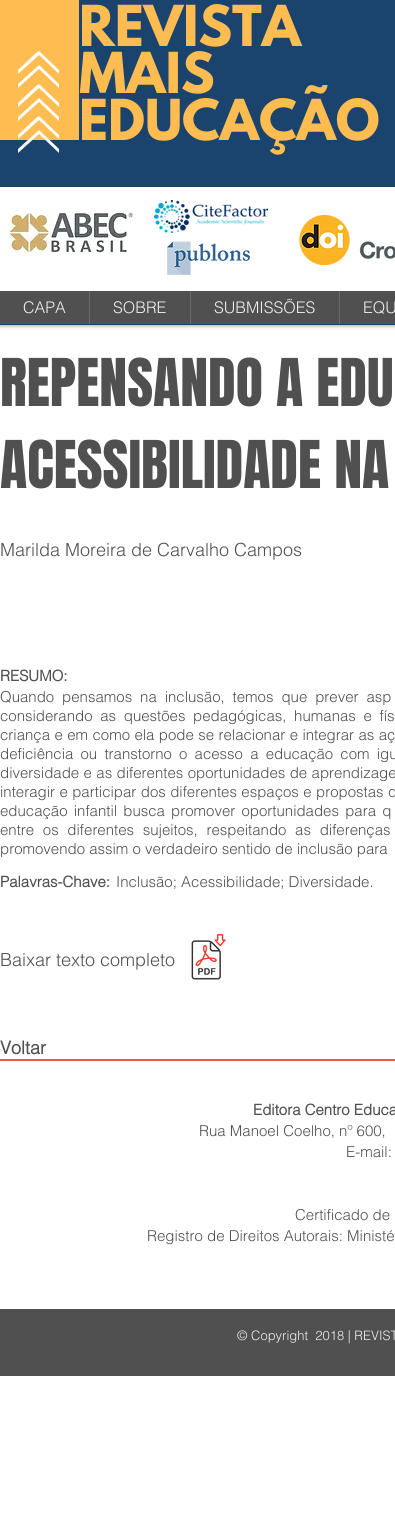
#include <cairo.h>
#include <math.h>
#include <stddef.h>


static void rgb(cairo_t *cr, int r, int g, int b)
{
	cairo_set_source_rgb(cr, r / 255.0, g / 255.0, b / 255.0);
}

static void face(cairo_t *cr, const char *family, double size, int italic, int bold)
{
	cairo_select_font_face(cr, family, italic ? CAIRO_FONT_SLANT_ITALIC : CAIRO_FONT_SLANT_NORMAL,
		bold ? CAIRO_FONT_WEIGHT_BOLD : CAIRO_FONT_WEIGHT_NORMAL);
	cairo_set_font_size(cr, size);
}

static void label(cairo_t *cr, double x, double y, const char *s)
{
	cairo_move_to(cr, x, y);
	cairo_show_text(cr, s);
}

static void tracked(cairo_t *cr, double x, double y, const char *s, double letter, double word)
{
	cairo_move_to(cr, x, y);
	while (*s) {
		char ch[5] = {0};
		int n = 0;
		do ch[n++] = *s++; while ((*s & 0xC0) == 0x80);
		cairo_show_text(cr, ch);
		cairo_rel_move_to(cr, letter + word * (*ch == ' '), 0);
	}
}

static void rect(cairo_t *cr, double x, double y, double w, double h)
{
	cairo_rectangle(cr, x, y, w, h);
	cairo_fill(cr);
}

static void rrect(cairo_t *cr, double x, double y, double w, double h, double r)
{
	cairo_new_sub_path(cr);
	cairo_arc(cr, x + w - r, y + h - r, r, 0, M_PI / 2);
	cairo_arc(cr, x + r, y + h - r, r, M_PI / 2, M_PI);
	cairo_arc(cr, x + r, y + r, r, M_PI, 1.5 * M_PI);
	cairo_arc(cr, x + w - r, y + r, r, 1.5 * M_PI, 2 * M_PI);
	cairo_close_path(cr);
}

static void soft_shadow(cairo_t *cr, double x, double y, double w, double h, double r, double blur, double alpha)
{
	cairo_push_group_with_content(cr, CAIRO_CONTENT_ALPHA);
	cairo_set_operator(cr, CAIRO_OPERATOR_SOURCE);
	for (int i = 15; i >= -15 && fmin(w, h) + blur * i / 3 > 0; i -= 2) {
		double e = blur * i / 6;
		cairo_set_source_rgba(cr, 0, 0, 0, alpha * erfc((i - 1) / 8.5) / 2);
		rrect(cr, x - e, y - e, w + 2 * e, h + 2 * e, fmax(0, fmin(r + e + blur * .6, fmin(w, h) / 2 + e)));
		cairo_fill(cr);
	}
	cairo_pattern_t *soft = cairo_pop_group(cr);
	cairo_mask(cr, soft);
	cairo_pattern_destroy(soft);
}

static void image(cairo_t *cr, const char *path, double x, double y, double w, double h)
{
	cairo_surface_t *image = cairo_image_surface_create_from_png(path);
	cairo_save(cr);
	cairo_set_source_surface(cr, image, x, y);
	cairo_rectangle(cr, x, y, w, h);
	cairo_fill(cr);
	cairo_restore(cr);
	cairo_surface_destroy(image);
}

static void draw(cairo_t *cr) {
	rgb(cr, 255, 255, 255);
	cairo_paint(cr);
	rgb(cr, 0, 0, 0);
	soft_shadow(cr, 0, 0, 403, 325, 0, 2.5, 0.5);
	rgb(cr, 26, 67, 109);
	rect(cr, 0, 0, 395, 325);
	rgb(cr, 255, 188, 81);
	rect(cr, 0, 0, 79, 140);
	rgb(cr, 255, 255, 255);
	cairo_new_path(cr);
	cairo_move_to(cr, 36, 53);
	cairo_line_to(cr, 18, 70);
	cairo_line_to(cr, 18, 74);
	cairo_line_to(cr, 39, 55);
	cairo_line_to(cr, 59, 74);
	cairo_line_to(cr, 59, 70);
	cairo_line_to(cr, 39, 51);
	cairo_close_path(cr);
	cairo_fill(cr);
	cairo_new_path(cr);
	cairo_move_to(cr, 36, 86);
	cairo_line_to(cr, 18, 103);
	cairo_line_to(cr, 18, 107);
	cairo_line_to(cr, 39, 88);
	cairo_line_to(cr, 59, 107);
	cairo_line_to(cr, 59, 103);
	cairo_line_to(cr, 39, 84);
	cairo_close_path(cr);
	cairo_fill(cr);
	cairo_new_path(cr);
	cairo_move_to(cr, 39, 65);
	cairo_line_to(cr, 18, 84);
	cairo_line_to(cr, 18, 88);
	cairo_line_to(cr, 39, 69);
	cairo_line_to(cr, 59, 88);
	cairo_line_to(cr, 59, 84);
	cairo_close_path(cr);
	cairo_fill(cr);
	cairo_new_path(cr);
	cairo_move_to(cr, 36, 118);
	cairo_line_to(cr, 18, 135);
	cairo_line_to(cr, 18, 139);
	cairo_line_to(cr, 39, 120);
	cairo_line_to(cr, 59, 139);
	cairo_line_to(cr, 59, 135);
	cairo_line_to(cr, 39, 116);
	cairo_close_path(cr);
	cairo_fill(cr);
	cairo_new_path(cr);
	cairo_move_to(cr, 39, 98);
	cairo_line_to(cr, 18, 117);
	cairo_line_to(cr, 18, 121);
	cairo_line_to(cr, 39, 102);
	cairo_line_to(cr, 59, 121);
	cairo_line_to(cr, 59, 117);
	cairo_close_path(cr);
	cairo_fill(cr);
	cairo_new_path(cr);
	cairo_move_to(cr, 39, 130);
	cairo_line_to(cr, 18, 149);
	cairo_line_to(cr, 18, 153);
	cairo_line_to(cr, 39, 134);
	cairo_line_to(cr, 59, 153);
	cairo_line_to(cr, 59, 149);
	cairo_close_path(cr);
	cairo_fill(cr);
	face(cr, "League Spartan", 50, 0, 1);
	rgb(cr, 255, 188, 81);
	label(cr, 79, 46, "REVISTA");
	label(cr, 79, 93, "MAIS");
	label(cr, 79, 140, "EDUCAÇÃO");
	rgb(cr, 255, 255, 255);
	rect(cr, 0, 187, 395, 104);
	image(cr, "image0.png", 8, 210, 128, 45);
	image(cr, "image1.png", 154, 200, 114, 33);
	image(cr, "image2.png", 299, 215, 51, 50);
	image(cr, "image3.png", 167, 241, 83, 34);
	image(cr, "image4.png", 359, 241, 36, 18);
	rgb(cr, 80, 80, 80);
	rect(cr, 0, 291, 395, 33);
	face(cr, "helvetica Light", 16, 0, 0);
	rgb(cr, 238, 238, 238);
	label(cr, 23, 313, "CAPA");
	rgb(cr, 107, 107, 107);
	rect(cr, 89, 291, 1, 33);
	rgb(cr, 238, 238, 238);
	label(cr, 113, 313, "SOBRE");
	rgb(cr, 107, 107, 107);
	rect(cr, 190, 291, 1, 33);
	rgb(cr, 238, 238, 238);
	label(cr, 214, 313, "SUBMISSÕES");
	rgb(cr, 107, 107, 107);
	rect(cr, 339, 291, 1, 33);
	rgb(cr, 238, 238, 238);
	label(cr, 363, 313, "EQU");
	face(cr, "Anton", 56, 0, 0);
	rgb(cr, 80, 80, 80);
	label(cr, 0, 406, "REPENSANDO A EDU");
	label(cr, 0, 488, "ACESSIBILIDADE NA");
	face(cr, "helvetica Light", 18, 0, 0);
	label(cr, 0, 556, "Marilda Moreira de Carvalho Campos");
	face(cr, "helvetica", 15, 0, 1);
	label(cr, 0, 681, "RESUMO:");
	face(cr, "helvetica Light", 15, 0, 0);
	tracked(cr, 0, 702, "Quando pensamos na inclusão, temos que prever asp", 0, 3.75);
	tracked(cr, 0, 721, "considerando as questões pedagógicas, humanas e fís", 0, 3.5);
	tracked(cr, 0, 740, "criança e em como ela pode se relacionar e integrar as aç", 0, 0.25);
	tracked(cr, 0, 759, "deficiência ou transtorno o acesso a educação com igu", 0, 3);
	tracked(cr, 0, 778, "diversidade e as diferentes oportunidades de aprendizage", 0, 0.25);
	tracked(cr, 0, 797, "interagir e participar dos diferentes espaços e propostas q", 0, 0.25);
	tracked(cr, 0, 816, "educação infantil busca promover oportunidades para q", 0, 2);
	tracked(cr, 0, 835, "entre os diferentes sujeitos, respeitando as diferenças", 0, 4.5);
	label(cr, 0, 854, "promovendo assim o verdadeiro sentido de inclusão para");
	face(cr, "helvetica", 15, 0, 1);
	label(cr, 0, 887, "Palavras-Chave:");
	face(cr, "helvetica Light", 15, 0, 0);
	label(cr, 116, 887, "Inclusão; Acessibilidade; Diversidade.");
	face(cr, "helvetica Light", 18, 0, 0);
	label(cr, 0, 966, "Baixar texto completo");
	image(cr, "image5.png", 191, 934, 35, 46);
	face(cr, "helvetica", 18, 0, 1);
	label(cr, 0, 1054, "Voltar");
	rgb(cr, 237, 89, 76);
	rect(cr, 0, 1059, 395, 2);
	face(cr, "helvetica", 15, 0, 1);
	rgb(cr, 80, 80, 80);
	label(cr, 253, 1115, "Editora Centro Educa");
	face(cr, "helvetica Light", 15, 0, 0);
	label(cr, 199, 1136, "Rua Manoel Coelho, nº 600,");
	label(cr, 346, 1157, "E-mail:");
	label(cr, 295, 1220, "Certificado de");
	label(cr, 147, 1241, "Registro de Direitos Autorais: Ministé");
	rect(cr, 0, 1309, 395, 67);
	face(cr, "helvetica Light", 13, 0, 0);
	rgb(cr, 238, 238, 238);
	label(cr, 237, 1340, "© Copyright  2018 | REVIST");
}

int main(void) {
	cairo_surface_t *surface = cairo_image_surface_create(CAIRO_FORMAT_RGB24, 395, 1523);
	cairo_t *cr = cairo_create(surface);
	cairo_font_options_t *options = cairo_font_options_create();
	cairo_font_options_set_hint_metrics(options, CAIRO_HINT_METRICS_OFF);
	cairo_font_options_set_hint_style(options, CAIRO_HINT_STYLE_NONE);
	cairo_set_font_options(cr, options);
	cairo_set_miter_limit(cr, 4);
	draw(cr);
	cairo_surface_write_to_png(surface, "render.png");
	cairo_font_options_destroy(options);
	cairo_destroy(cr);
	cairo_surface_destroy(surface);
	return 0;
}
